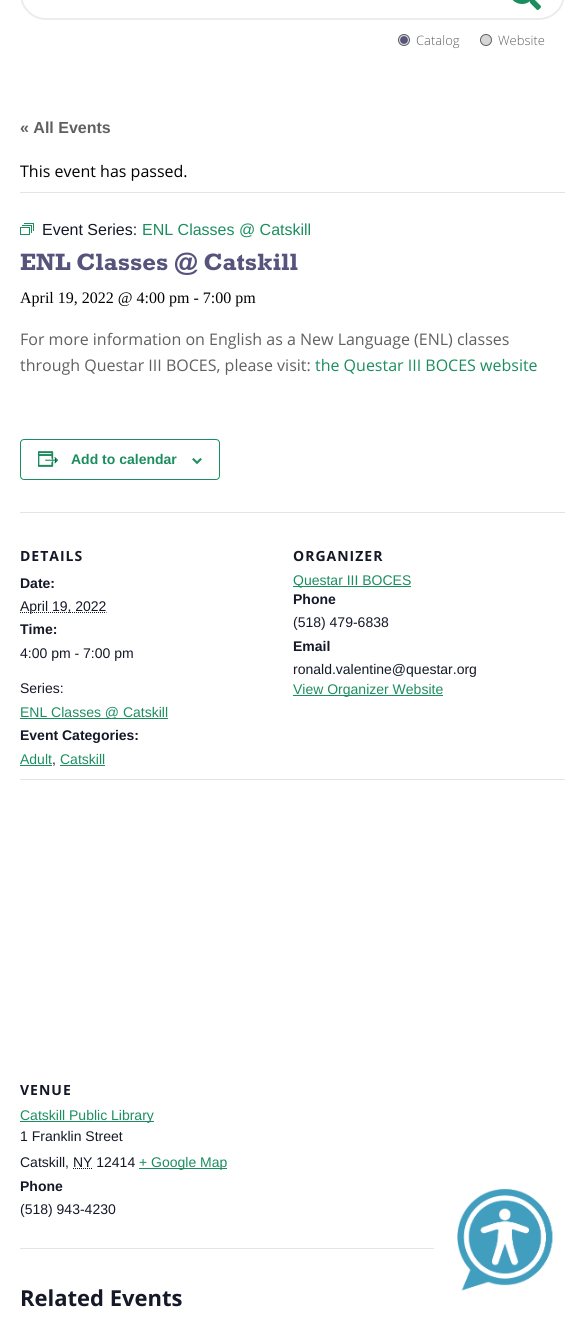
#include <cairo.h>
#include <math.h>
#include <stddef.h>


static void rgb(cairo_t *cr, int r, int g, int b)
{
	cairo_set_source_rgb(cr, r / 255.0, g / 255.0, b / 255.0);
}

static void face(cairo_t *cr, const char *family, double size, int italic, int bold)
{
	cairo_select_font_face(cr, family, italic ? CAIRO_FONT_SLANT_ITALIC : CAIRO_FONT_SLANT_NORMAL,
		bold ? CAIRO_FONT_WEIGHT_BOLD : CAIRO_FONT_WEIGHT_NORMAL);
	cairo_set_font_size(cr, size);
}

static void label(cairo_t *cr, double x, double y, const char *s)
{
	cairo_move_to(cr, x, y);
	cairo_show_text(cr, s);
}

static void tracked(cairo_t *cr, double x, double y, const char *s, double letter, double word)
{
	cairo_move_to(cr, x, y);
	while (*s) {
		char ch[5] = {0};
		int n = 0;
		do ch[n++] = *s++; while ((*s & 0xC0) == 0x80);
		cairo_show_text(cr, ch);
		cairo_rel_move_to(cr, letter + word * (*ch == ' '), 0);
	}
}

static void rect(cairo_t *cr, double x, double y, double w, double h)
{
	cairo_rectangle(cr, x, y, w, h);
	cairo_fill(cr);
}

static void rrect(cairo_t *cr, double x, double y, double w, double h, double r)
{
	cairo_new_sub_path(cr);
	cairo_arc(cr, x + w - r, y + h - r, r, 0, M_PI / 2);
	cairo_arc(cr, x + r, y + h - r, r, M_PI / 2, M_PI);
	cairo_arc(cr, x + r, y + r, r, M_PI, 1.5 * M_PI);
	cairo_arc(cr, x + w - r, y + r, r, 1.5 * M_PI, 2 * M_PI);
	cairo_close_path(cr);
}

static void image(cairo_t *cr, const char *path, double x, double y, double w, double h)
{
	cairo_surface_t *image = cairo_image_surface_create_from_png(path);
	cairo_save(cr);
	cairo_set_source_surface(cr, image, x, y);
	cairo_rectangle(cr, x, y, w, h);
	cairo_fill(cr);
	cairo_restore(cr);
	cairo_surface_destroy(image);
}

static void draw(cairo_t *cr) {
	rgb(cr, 255, 255, 255);
	cairo_paint(cr);
	rrect(cr, 21, -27, 543, 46, 25);
	rgb(cr, 236, 236, 236);
	cairo_stroke(cr);
	image(cr, "image0.png", 512, 0, 29, 10);
	rgb(cr, 214, 214, 214);
	cairo_arc(cr, 404, 40, 5.5, 0, 2 * M_PI);
	cairo_fill_preserve(cr);
	rgb(cr, 96, 96, 96);
	cairo_set_line_width(cr, 1);
	cairo_stroke(cr);
	image(cr, "image1.png", 400, 36, 8, 8);
	face(cr, "Open Sans Light", 13, 0, 0);
	label(cr, 416, 45, "Catalog");
	rgb(cr, 214, 214, 214);
	cairo_new_path(cr);
	cairo_arc(cr, 486, 40, 5.5, 0, 2 * M_PI);
	cairo_fill_preserve(cr);
	rgb(cr, 96, 96, 96);
	cairo_stroke(cr);
	label(cr, 498, 45, "Website");
	face(cr, "Liberation Sans", 16, 0, 1);
	label(cr, 20, 133, "« All Events");
	rgb(cr, 228, 228, 228);
	rect(cr, 20, 192, 545, 1);
	face(cr, "Open Sans", 16, 0, 0);
	rgb(cr, 0, 0, 0);
	label(cr, 20, 177, "This event has passed.");
	image(cr, "image2.png", 20, 223, 14, 12);
	face(cr, "Liberation Sans", 16, 0, 0);
	rgb(cr, 20, 24, 39);
	label(cr, 42, 235, "Event Series:");
	rgb(cr, 27, 142, 95);
	label(cr, 142, 235, "ENL Classes @ Catskill");
	face(cr, "Rockwell", 24, 0, 1);
	rgb(cr, 86, 83, 124);
	label(cr, 20, 270, "ENL Classes @ Catskill");
	face(cr, "Liberation Serif", 16, 0, 0);
	rgb(cr, 0, 0, 0);
	label(cr, 20, 303, "April 19, 2022 @ 4:00 pm - 7:00 pm");
	face(cr, "Open Sans", 16, 0, 0);
	rgb(cr, 96, 96, 96);
	label(cr, 20, 345, "For more information on English as a New Language (ENL) classes");
	label(cr, 20, 371, "through Questar III BOCES, please visit:");
	rgb(cr, 27, 142, 95);
	label(cr, 315, 371, "the Questar III BOCES website");
	rrect(cr, 20.5, 439.5, 199, 40, 3.5);
	cairo_stroke(cr);
	image(cr, "image3.png", 38, 451, 21, 16);
	face(cr, "Liberation Sans", 14, 0, 1);
	label(cr, 71, 464, "Add to calendar");
	image(cr, "image4.png", 192, 458, 10, 6);
	rgb(cr, 228, 228, 228);
	rect(cr, 20, 512, 545, 1);
	face(cr, "Open Sans", 14, 0, 1);
	rgb(cr, 20, 24, 39);
	tracked(cr, 20, 561, "DETAILS", 1, 0);
	face(cr, "Liberation Sans", 14, 0, 1);
	label(cr, 20, 588, "Date:");
	cairo_new_path(cr);
	cairo_move_to(cr, 20, 612.5);
	cairo_line_to(cr, 106.5, 612.5);
	cairo_set_dash(cr, (double[]){1, 1}, 2, 0);
	cairo_stroke(cr);
	face(cr, "Liberation Sans", 14, 0, 0);
	label(cr, 20, 611, "April 19, 2022");
	face(cr, "Liberation Sans", 14, 0, 1);
	label(cr, 20, 634, "Time:");
	face(cr, "Liberation Sans", 14, 0, 0);
	label(cr, 20, 658, "4:00 pm - 7:00 pm");
	label(cr, 20, 693, "Series:");
	rgb(cr, 27, 142, 95);
	rect(cr, 20, 718, 148, 1);
	label(cr, 20, 717, "ENL Classes @ Catskill");
	face(cr, "Liberation Sans", 14, 0, 1);
	rgb(cr, 20, 24, 39);
	label(cr, 20, 740, "Event Categories:");
	face(cr, "Liberation Sans", 14, 0, 0);
	rgb(cr, 27, 142, 95);
	label(cr, 20, 764, "Adult");
	rect(cr, 20, 765, 32, 1);
	rgb(cr, 20, 24, 39);
	label(cr, 52, 764, ",");
	rgb(cr, 27, 142, 95);
	label(cr, 60, 764, "Catskill");
	rect(cr, 60, 765, 45, 1);
	face(cr, "Open Sans", 14, 0, 1);
	rgb(cr, 20, 24, 39);
	tracked(cr, 293, 561, "ORGANIZER", 1, 0);
	rgb(cr, 27, 142, 95);
	rect(cr, 293, 586, 118, 1);
	face(cr, "Liberation Sans", 14, 0, 0);
	label(cr, 293, 585, "Questar III BOCES");
	face(cr, "Liberation Sans", 14, 0, 1);
	rgb(cr, 20, 24, 39);
	label(cr, 293, 604, "Phone");
	face(cr, "Liberation Sans", 14, 0, 0);
	label(cr, 293, 627, "(518) 479-6838");
	face(cr, "Liberation Sans", 14, 0, 1);
	label(cr, 293, 651, "Email");
	face(cr, "Liberation Sans", 14, 0, 0);
	label(cr, 293, 674, "ronald.valentine@questar.org");
	rgb(cr, 27, 142, 95);
	rect(cr, 293, 695, 150, 1);
	label(cr, 293, 694, "View Organizer Website");
	rgb(cr, 228, 228, 228);
	rect(cr, 20, 779, 545, 1);
	face(cr, "Open Sans", 14, 0, 1);
	rgb(cr, 20, 24, 39);
	tracked(cr, 20, 1095, "VENUE", 1, 0);
	rgb(cr, 27, 142, 95);
	rect(cr, 20, 1121, 134, 1);
	face(cr, "Liberation Sans", 14, 0, 0);
	label(cr, 20, 1120, "Catskill Public Library");
	rgb(cr, 20, 24, 39);
	label(cr, 20, 1141, "1 Franklin Street");
	label(cr, 20, 1167, "Catskill, NY 12414");
	cairo_new_path(cr);
	cairo_move_to(cr, 73, 1168.5);
	cairo_line_to(cr, 92.5, 1168.5);
	cairo_stroke(cr);
	rgb(cr, 27, 142, 95);
	rect(cr, 139, 1168, 88, 1);
	label(cr, 139, 1167, "+ Google Map");
	face(cr, "Liberation Sans", 14, 0, 1);
	rgb(cr, 20, 24, 39);
	label(cr, 20, 1191, "Phone");
	face(cr, "Liberation Sans", 14, 0, 0);
	label(cr, 20, 1214, "(518) 943-4230");
	rgb(cr, 228, 228, 228);
	rect(cr, 20, 1248, 415, 1);
	face(cr, "Open Sans", 22, 0, 1);
	rgb(cr, 20, 24, 39);
	label(cr, 20, 1306, "Related Events");
	image(cr, "image5.png", 433, 1188, 132, 103);
}

int main(void) {
	cairo_surface_t *surface = cairo_image_surface_create(CAIRO_FORMAT_RGB24, 585, 1321);
	cairo_t *cr = cairo_create(surface);
	cairo_font_options_t *options = cairo_font_options_create();
	cairo_font_options_set_hint_metrics(options, CAIRO_HINT_METRICS_OFF);
	cairo_font_options_set_hint_style(options, CAIRO_HINT_STYLE_NONE);
	cairo_set_font_options(cr, options);
	cairo_set_miter_limit(cr, 4);
	draw(cr);
	cairo_surface_write_to_png(surface, "render.png");
	cairo_font_options_destroy(options);
	cairo_destroy(cr);
	cairo_surface_destroy(surface);
	return 0;
}
